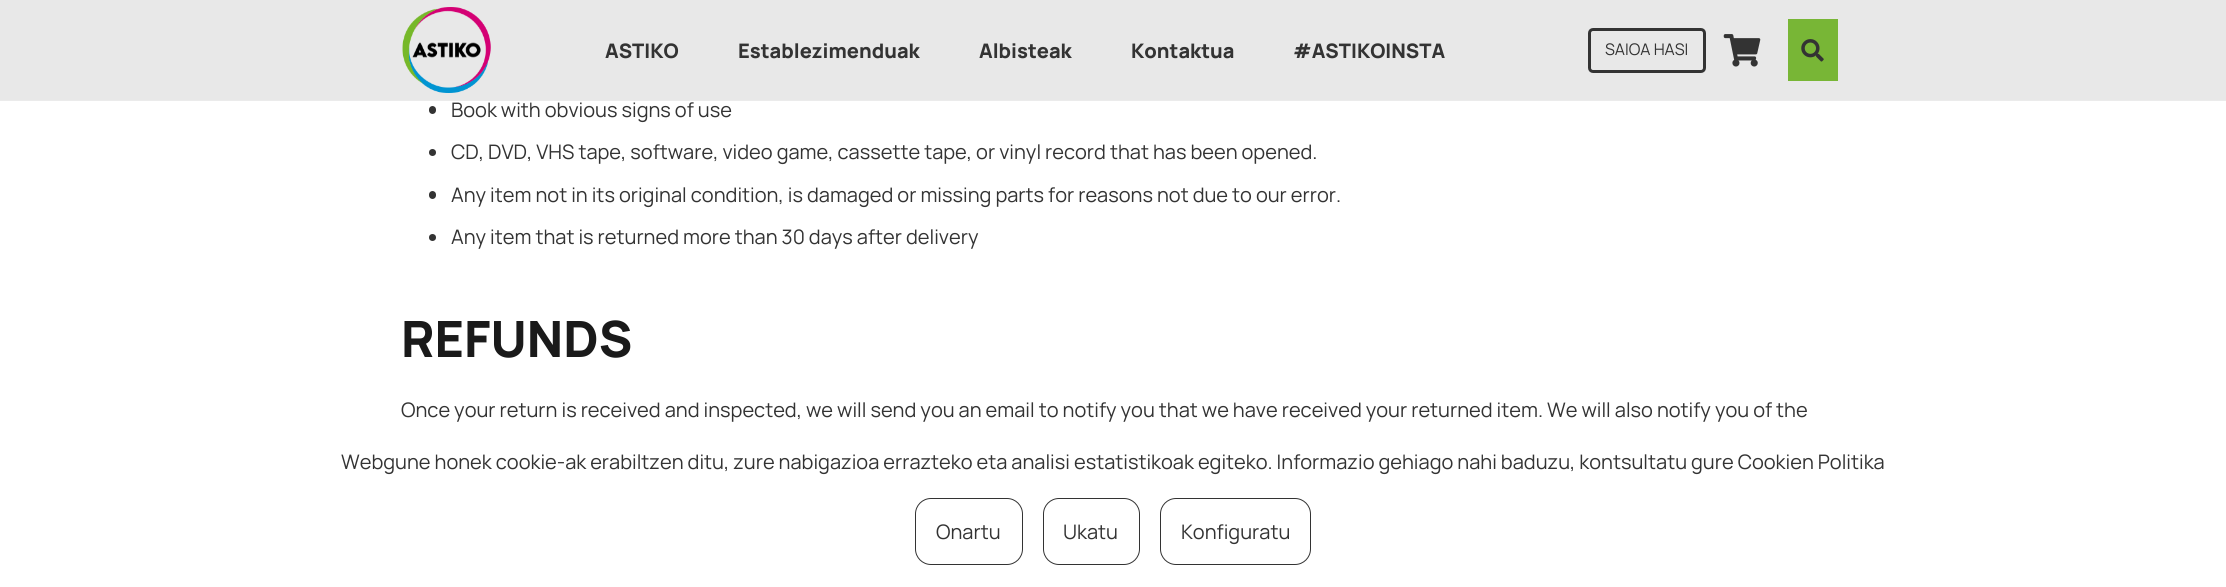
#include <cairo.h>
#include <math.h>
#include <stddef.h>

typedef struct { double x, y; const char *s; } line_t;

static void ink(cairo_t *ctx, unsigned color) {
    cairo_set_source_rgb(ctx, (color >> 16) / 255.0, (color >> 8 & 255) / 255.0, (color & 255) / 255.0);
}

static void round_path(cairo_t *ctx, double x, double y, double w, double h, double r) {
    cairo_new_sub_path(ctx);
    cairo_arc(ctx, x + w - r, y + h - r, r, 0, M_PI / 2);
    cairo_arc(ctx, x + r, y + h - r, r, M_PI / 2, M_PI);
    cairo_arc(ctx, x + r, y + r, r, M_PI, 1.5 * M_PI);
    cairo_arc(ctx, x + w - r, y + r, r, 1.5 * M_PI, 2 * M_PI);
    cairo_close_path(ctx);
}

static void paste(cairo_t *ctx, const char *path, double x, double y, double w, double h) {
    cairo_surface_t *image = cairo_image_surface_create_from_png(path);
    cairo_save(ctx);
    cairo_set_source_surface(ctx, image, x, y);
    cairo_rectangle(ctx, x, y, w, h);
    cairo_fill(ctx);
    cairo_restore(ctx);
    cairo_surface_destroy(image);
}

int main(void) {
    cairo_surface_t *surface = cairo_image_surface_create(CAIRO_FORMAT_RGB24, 2226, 587);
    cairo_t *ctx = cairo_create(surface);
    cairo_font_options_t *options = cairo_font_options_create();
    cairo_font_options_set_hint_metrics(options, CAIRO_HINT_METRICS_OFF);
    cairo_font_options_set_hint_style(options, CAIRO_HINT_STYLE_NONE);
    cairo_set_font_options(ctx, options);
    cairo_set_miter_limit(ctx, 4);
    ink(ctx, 0xFFFFFF);
    cairo_paint(ctx);
    ink(ctx, 0xEBEBEB);
    cairo_rectangle(ctx, 0, 100, 2226, 1);
    cairo_fill(ctx);
    ink(ctx, 0xE8E8E8);
    cairo_rectangle(ctx, 0, 0, 2226, 100);
    cairo_fill(ctx);
    paste(ctx, "media/1.png", 402, 7, 89, 86);
    cairo_select_font_face(ctx, "Manrope ExtraBold", CAIRO_FONT_SLANT_NORMAL, CAIRO_FONT_WEIGHT_NORMAL);
    cairo_set_font_size(ctx, 20);
    ink(ctx, 0x333333);
    {
        static const line_t items[] = {
            {605, 58, "ASTIKO"},
            {738, 58, "Establezimenduak"},
            {979, 58, "Albisteak"},
            {1131, 58, "Kontaktua"},
            {1293, 58, "#ASTIKOINSTA"},
        };
        for (size_t i = 0; i < sizeof items / sizeof *items; i++) {
            cairo_move_to(ctx, items[i].x, items[i].y);
            cairo_show_text(ctx, items[i].s);
        }
    }
    round_path(ctx, 1589.5, 29.5, 115, 42, 3.5);
    cairo_set_line_width(ctx, 3);
    cairo_stroke(ctx);
    cairo_select_font_face(ctx, "Manrope", CAIRO_FONT_SLANT_NORMAL, CAIRO_FONT_WEIGHT_NORMAL);
    cairo_set_font_size(ctx, 16);
    cairo_move_to(ctx, 1605, 55);
    cairo_show_text(ctx, "SAIOA HASI");
    paste(ctx, "media/2.png", 1723, 34, 38, 33);
    ink(ctx, 0x78B636);
    cairo_rectangle(ctx, 1788, 19, 50, 62);
    cairo_fill(ctx);
    paste(ctx, "media/3.png", 1801, 39, 23, 23);
    ink(ctx, 0x333333);
    round_path(ctx, 429, 106, 7, 8, 3.5);
    cairo_fill(ctx);
    cairo_set_font_size(ctx, 20);
    cairo_move_to(ctx, 451, 117);
    cairo_show_text(ctx, "Book with obvious signs of use");
    cairo_new_path(ctx);
    cairo_arc(ctx, 432.5, 152.5, 3.5, 0, 2 * M_PI);
    cairo_fill(ctx);
    cairo_move_to(ctx, 451, 159);
    cairo_show_text(ctx, "CD, DVD, VHS tape, software, video game, cassette tape, or vinyl record that has been opened.");
    round_path(ctx, 429, 191, 7, 8, 3.5);
    cairo_fill(ctx);
    cairo_move_to(ctx, 451, 202);
    cairo_show_text(ctx, "Any item not in its original condition, is damaged or missing parts for reasons not due to our error.");
    cairo_new_path(ctx);
    cairo_arc(ctx, 432.5, 237.5, 3.5, 0, 2 * M_PI);
    cairo_fill(ctx);
    cairo_move_to(ctx, 451, 244);
    cairo_show_text(ctx, "Any item that is returned more than 30 days after delivery");
    cairo_select_font_face(ctx, "Manrope ExtraBold", CAIRO_FONT_SLANT_NORMAL, CAIRO_FONT_WEIGHT_NORMAL);
    cairo_set_font_size(ctx, 50);
    ink(ctx, 0x1A1A1A);
    cairo_move_to(ctx, 401, 357);
    cairo_show_text(ctx, "REFUNDS");
    cairo_select_font_face(ctx, "Manrope", CAIRO_FONT_SLANT_NORMAL, CAIRO_FONT_WEIGHT_NORMAL);
    cairo_set_font_size(ctx, 20);
    ink(ctx, 0x333333);
    cairo_move_to(ctx, 401, 417);
    cairo_show_text(ctx, "Once your return is received and inspected, we will send you an email to notify you that we have received your returned item. We will also notify you of the");
    cairo_move_to(ctx, 341, 469);
    cairo_show_text(ctx, "Webgune honek cookie-ak erabiltzen ditu, zure nabigazioa errazteko eta analisi estatistikoak egiteko. Informazio gehiago nahi baduzu, kontsultatu gure Cookien Politika");
    round_path(ctx, 915.5, 498.5, 107, 66, 15.5);
    cairo_set_line_width(ctx, 1);
    cairo_stroke(ctx);
    cairo_move_to(ctx, 936, 539);
    cairo_show_text(ctx, "Onartu");
    round_path(ctx, 1043.5, 498.5, 96, 66, 15.5);
    cairo_stroke(ctx);
    cairo_move_to(ctx, 1063, 539);
    cairo_show_text(ctx, "Ukatu");
    round_path(ctx, 1160.5, 498.5, 150, 66, 15.5);
    cairo_stroke(ctx);
    cairo_move_to(ctx, 1181, 539);
    cairo_show_text(ctx, "Konfiguratu");
    cairo_surface_write_to_png(surface, "image.png");
    cairo_font_options_destroy(options);
    cairo_destroy(ctx);
    cairo_surface_destroy(surface);
    return 0;
}
